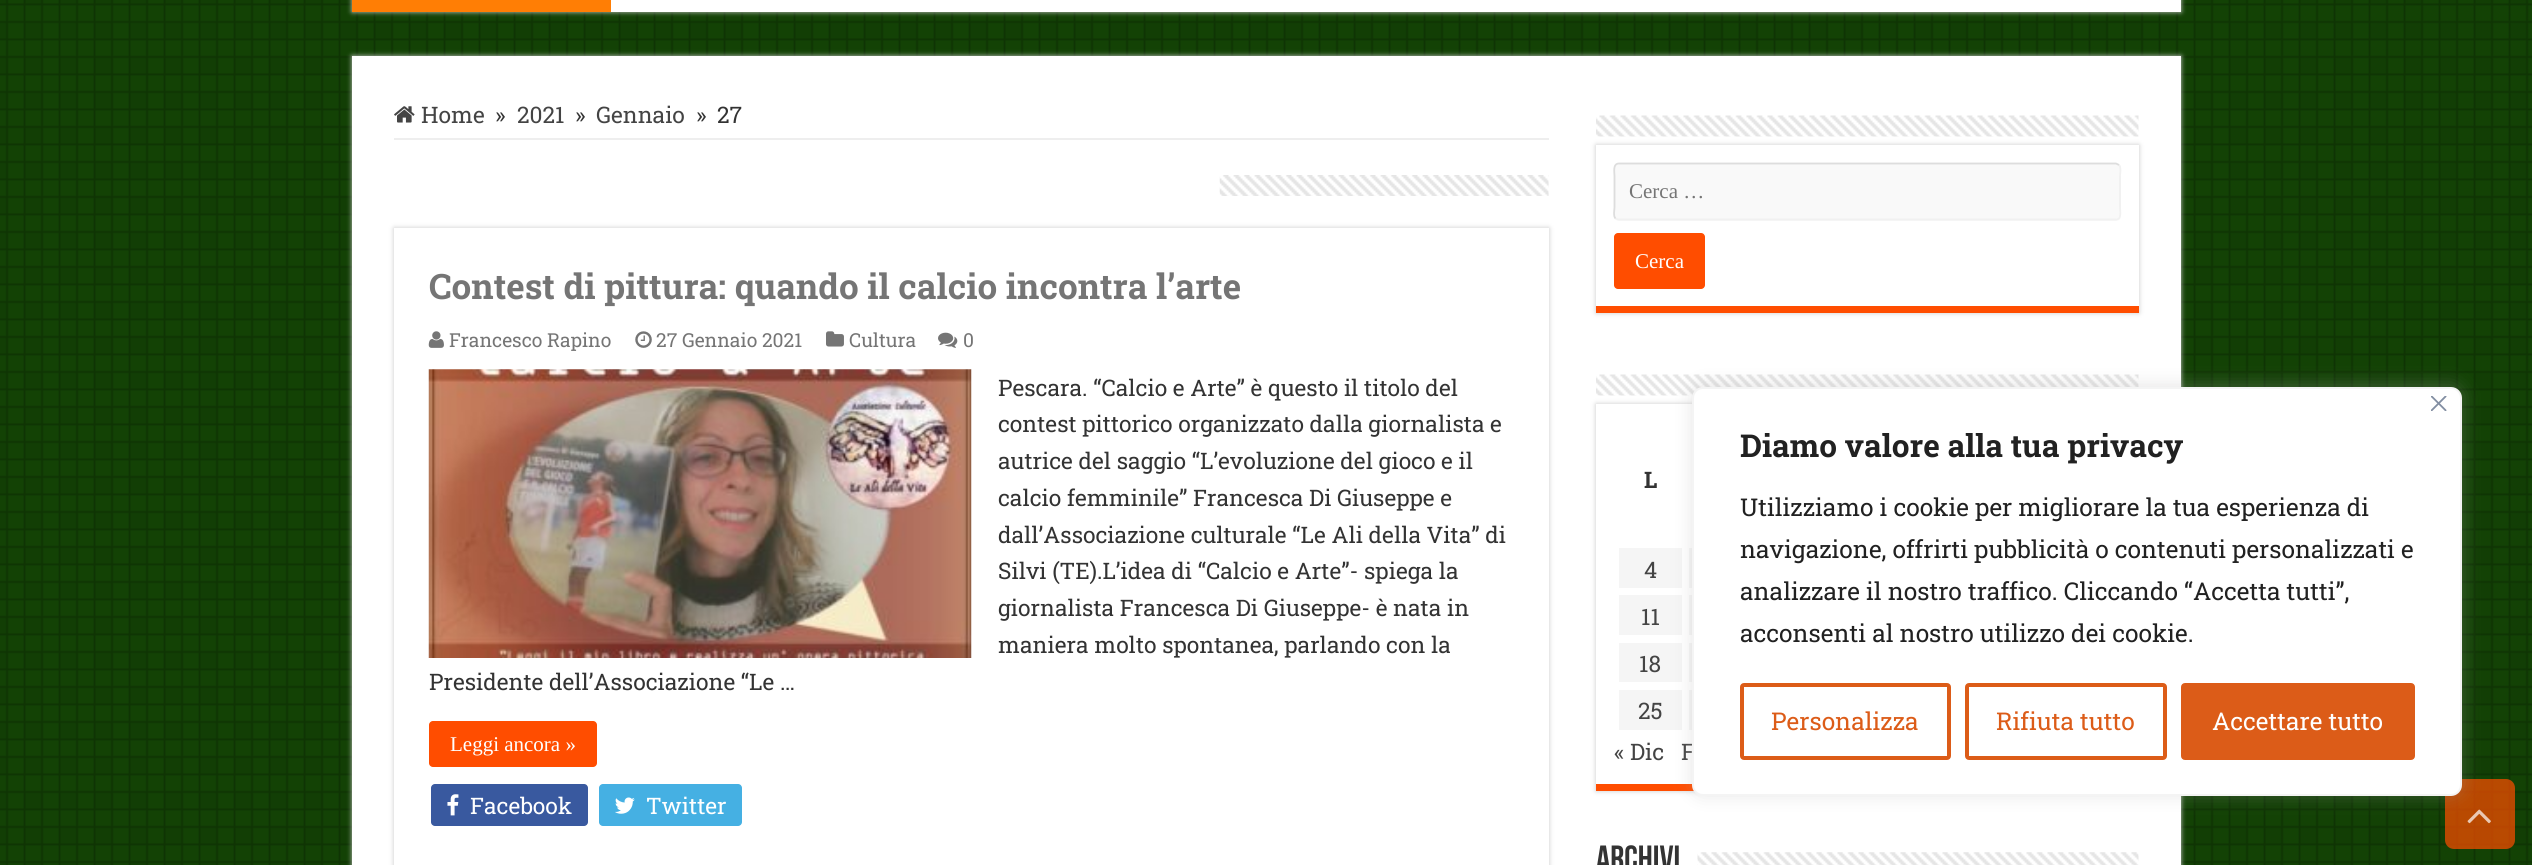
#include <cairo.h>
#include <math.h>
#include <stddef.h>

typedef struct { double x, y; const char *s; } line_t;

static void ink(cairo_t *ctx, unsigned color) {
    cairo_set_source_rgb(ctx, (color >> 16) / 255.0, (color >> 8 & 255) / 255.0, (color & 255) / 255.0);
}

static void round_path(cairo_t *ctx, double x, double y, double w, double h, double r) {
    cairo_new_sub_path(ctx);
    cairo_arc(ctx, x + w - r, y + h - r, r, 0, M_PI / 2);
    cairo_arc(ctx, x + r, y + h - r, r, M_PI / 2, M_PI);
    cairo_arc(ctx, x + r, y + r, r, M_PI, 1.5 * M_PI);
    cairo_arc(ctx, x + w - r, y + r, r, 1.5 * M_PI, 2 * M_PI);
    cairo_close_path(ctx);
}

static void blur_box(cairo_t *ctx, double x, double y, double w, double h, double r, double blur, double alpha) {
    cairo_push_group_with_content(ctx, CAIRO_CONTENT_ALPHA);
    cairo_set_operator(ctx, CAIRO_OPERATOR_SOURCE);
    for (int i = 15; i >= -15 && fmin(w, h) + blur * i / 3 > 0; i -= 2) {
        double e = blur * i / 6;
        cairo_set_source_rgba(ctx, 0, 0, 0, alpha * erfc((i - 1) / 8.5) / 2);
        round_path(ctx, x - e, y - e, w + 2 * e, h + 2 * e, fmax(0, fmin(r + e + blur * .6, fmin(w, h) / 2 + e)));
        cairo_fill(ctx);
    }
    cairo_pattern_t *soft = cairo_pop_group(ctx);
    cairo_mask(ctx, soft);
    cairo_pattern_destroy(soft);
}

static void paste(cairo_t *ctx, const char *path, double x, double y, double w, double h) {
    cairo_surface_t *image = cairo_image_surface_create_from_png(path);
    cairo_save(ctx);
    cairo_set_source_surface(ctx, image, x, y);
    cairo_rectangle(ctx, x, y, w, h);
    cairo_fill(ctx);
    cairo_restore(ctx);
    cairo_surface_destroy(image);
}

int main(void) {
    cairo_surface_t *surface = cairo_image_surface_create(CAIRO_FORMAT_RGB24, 2532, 865);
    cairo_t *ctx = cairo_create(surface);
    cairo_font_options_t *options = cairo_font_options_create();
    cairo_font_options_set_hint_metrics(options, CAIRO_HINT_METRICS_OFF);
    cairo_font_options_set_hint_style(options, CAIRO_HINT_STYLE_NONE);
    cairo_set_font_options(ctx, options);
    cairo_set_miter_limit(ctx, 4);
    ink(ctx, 0x134205);
    cairo_paint(ctx);
    paste(ctx, "media/1.png", 0, 0, 2532, 865);
    ink(ctx, 0xCACACA);
    blur_box(ctx, 352, -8, 1829, 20, 0, 2.5, 1);
    ink(ctx, 0xFFFFFF);
    cairo_rectangle(ctx, 611, 0, 1570, 12);
    cairo_fill(ctx);
    ink(ctx, 0xFF7E05);
    cairo_rectangle(ctx, 352, 0, 259, 12);
    cairo_fill(ctx);
    ink(ctx, 0xCACACA);
    blur_box(ctx, 352, 56, 1829, 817, 0, 2.5, 1);
    ink(ctx, 0xFFFFFF);
    cairo_rectangle(ctx, 352, 56, 1829, 809);
    cairo_fill(ctx);
    ink(ctx, 0xEEEEEE);
    cairo_rectangle(ctx, 394, 138, 1155, 2);
    cairo_fill(ctx);
    paste(ctx, "media/2.png", 394, 106, 21, 17);
    cairo_select_font_face(ctx, "Roboto Slab", CAIRO_FONT_SLANT_NORMAL, CAIRO_FONT_WEIGHT_NORMAL);
    cairo_set_font_size(ctx, 22.75);
    ink(ctx, 0x444444);
    cairo_move_to(ctx, 421, 123);
    cairo_show_text(ctx, "Home");
    ink(ctx, 0x333333);
    cairo_move_to(ctx, 495, 123);
    cairo_show_text(ctx, "»");
    ink(ctx, 0x444444);
    cairo_move_to(ctx, 517, 123);
    cairo_show_text(ctx, "2021");
    ink(ctx, 0x333333);
    cairo_move_to(ctx, 575, 123);
    cairo_show_text(ctx, "»");
    ink(ctx, 0x444444);
    cairo_move_to(ctx, 596, 123);
    cairo_show_text(ctx, "Gennaio");
    ink(ctx, 0x333333);
    cairo_move_to(ctx, 696, 123);
    cairo_show_text(ctx, "»");
    cairo_move_to(ctx, 717, 123);
    cairo_show_text(ctx, "27");
    paste(ctx, "media/3.png", 1219, 175, 330, 21);
    ink(ctx, 0xCACACA);
    blur_box(ctx, 394, 228, 1155, 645, 0, 2.5, 1);
    ink(ctx, 0xFFFFFF);
    cairo_rectangle(ctx, 394, 228, 1155, 637);
    cairo_fill(ctx);
    cairo_select_font_face(ctx, "Roboto Slab", CAIRO_FONT_SLANT_NORMAL, CAIRO_FONT_WEIGHT_BOLD);
    cairo_set_font_size(ctx, 35);
    ink(ctx, 0x757575);
    cairo_move_to(ctx, 429, 299);
    cairo_show_text(ctx, "Contest di pittura: quando il calcio incontra l’arte");
    paste(ctx, "media/4.png", 428, 331, 16, 17);
    cairo_select_font_face(ctx, "Roboto Slab", CAIRO_FONT_SLANT_NORMAL, CAIRO_FONT_WEIGHT_NORMAL);
    cairo_set_font_size(ctx, 19.25);
    cairo_move_to(ctx, 449, 347);
    cairo_show_text(ctx, "Francesco Rapino");
    paste(ctx, "media/5.png", 635, 331, 17, 17);
    cairo_move_to(ctx, 656, 347);
    cairo_show_text(ctx, "27 Gennaio 2021");
    paste(ctx, "media/6.png", 826, 331, 18, 16);
    cairo_move_to(ctx, 849, 347);
    cairo_show_text(ctx, "Cultura");
    paste(ctx, "media/7.png", 938, 332, 20, 16);
    cairo_move_to(ctx, 963, 347);
    cairo_show_text(ctx, "0");
    paste(ctx, "media/8.png", 428, 369, 544, 289);
    cairo_set_font_size(ctx, 22.75);
    ink(ctx, 0x333333);
    {
        static const line_t items[] = {
            {998, 396, "Pescara. “Calcio e Arte” è questo il titolo del"},
            {998, 432, "contest pittorico organizzato dalla giornalista e"},
            {998, 469, "autrice del saggio “L’evoluzione del gioco e il"},
            {998, 506, "calcio femminile” Francesca Di Giuseppe e"},
            {998, 543, "dall’Associazione culturale “Le Ali della Vita” di"},
            {998, 579, "Silvi (TE).L’idea di “Calcio e Arte”- spiega la"},
            {998, 616, "giornalista Francesca Di Giuseppe- è nata in"},
            {998, 653, "maniera molto spontanea, parlando con la"},
            {429, 690, "Presidente dell’Associazione “Le …"},
        };
        for (size_t i = 0; i < sizeof items / sizeof *items; i++) {
            cairo_move_to(ctx, items[i].x, items[i].y);
            cairo_show_text(ctx, items[i].s);
        }
    }
    ink(ctx, 0xFF4D00);
    round_path(ctx, 429, 721, 168, 46, 4);
    cairo_fill(ctx);
    cairo_select_font_face(ctx, "Liberation Serif", CAIRO_FONT_SLANT_NORMAL, CAIRO_FONT_WEIGHT_NORMAL);
    cairo_set_font_size(ctx, 21);
    ink(ctx, 0xFFFFFF);
    cairo_move_to(ctx, 450, 751);
    cairo_show_text(ctx, "Leggi ancora »");
    ink(ctx, 0x39599F);
    round_path(ctx, 431, 784, 157, 42, 4);
    cairo_fill(ctx);
    paste(ctx, "media/9.png", 447, 794, 12, 22);
    cairo_select_font_face(ctx, "Roboto Slab", CAIRO_FONT_SLANT_NORMAL, CAIRO_FONT_WEIGHT_NORMAL);
    cairo_set_font_size(ctx, 22.75);
    ink(ctx, 0xFFFFFF);
    cairo_move_to(ctx, 470, 814);
    cairo_show_text(ctx, "Facebook");
    ink(ctx, 0x45B0E3);
    round_path(ctx, 599, 784, 143, 42, 4);
    cairo_fill(ctx);
    paste(ctx, "media/10.png", 615, 797, 20, 17);
    ink(ctx, 0xFFFFFF);
    cairo_move_to(ctx, 646, 814);
    cairo_show_text(ctx, "Twitter");
    ink(ctx, 0xCACACA);
    blur_box(ctx, 1596, 145, 543, 168, 0, 2.5, 1);
    paste(ctx, "media/11.png", 1596, 115, 543, 22);
    ink(ctx, 0xFFFFFF);
    cairo_rectangle(ctx, 1596, 145, 543, 161);
    cairo_fill(ctx);
    ink(ctx, 0xFF4D00);
    cairo_rectangle(ctx, 1596, 306, 543, 7);
    cairo_fill(ctx);
    ink(ctx, 0xF9F9F9);
    round_path(ctx, 1614, 163, 507, 58, 5);
    cairo_fill(ctx);
    cairo_new_path(ctx);
    cairo_move_to(ctx, 2119, 165);
    cairo_curve_to(ctx, 2121.5, 167.5, 2120, 174, 2120, 176);
    cairo_line_to(ctx, 2120, 207.5);
    cairo_curve_to(ctx, 2120, 210.5, 2122, 219.5, 2116, 219.5);
    cairo_line_to(ctx, 1618.5, 219.5);
    cairo_line_to(ctx, 1615.5, 218.5);
    ink(ctx, 0xF1F1F1);
    cairo_set_line_width(ctx, 1.8);
    cairo_stroke(ctx);
    cairo_new_path(ctx);
    cairo_move_to(ctx, 1615.5, 218.5);
    cairo_curve_to(ctx, 1613, 216, 1614.5, 209.5, 1614.5, 207.5);
    cairo_line_to(ctx, 1614.5, 176);
    cairo_curve_to(ctx, 1614.5, 172.5, 1612.5, 163.5, 1619, 163.5);
    cairo_line_to(ctx, 2116, 163.5);
    cairo_line_to(ctx, 2119, 165);
    ink(ctx, 0xDDDDDD);
    cairo_stroke(ctx);
    cairo_select_font_face(ctx, "Liberation Serif", CAIRO_FONT_SLANT_NORMAL, CAIRO_FONT_WEIGHT_NORMAL);
    cairo_set_font_size(ctx, 21);
    ink(ctx, 0x757575);
    cairo_move_to(ctx, 1629, 198);
    cairo_show_text(ctx, "Cerca …");
    ink(ctx, 0xFF4D00);
    round_path(ctx, 1614, 233, 91, 56, 4);
    cairo_fill(ctx);
    ink(ctx, 0xFFFFFF);
    cairo_move_to(ctx, 1635, 268);
    cairo_show_text(ctx, "Cerca");
    ink(ctx, 0xCACACA);
    blur_box(ctx, 1596, 404, 543, 387, 0, 2.5, 1);
    paste(ctx, "media/11.png", 1596, 374, 543, 22);
    ink(ctx, 0xFFFFFF);
    cairo_rectangle(ctx, 1596, 404, 96, 380);
    cairo_fill(ctx);
    ink(ctx, 0xFF4D00);
    cairo_rectangle(ctx, 1596, 784, 98, 7);
    cairo_fill(ctx);
    cairo_select_font_face(ctx, "Roboto Slab", CAIRO_FONT_SLANT_NORMAL, CAIRO_FONT_WEIGHT_BOLD);
    cairo_set_font_size(ctx, 22.75);
    ink(ctx, 0x333333);
    cairo_move_to(ctx, 1644, 488);
    cairo_show_text(ctx, "L");
    ink(ctx, 0xF5F5F5);
    cairo_rectangle(ctx, 1619, 548, 63, 40);
    cairo_fill(ctx);
    cairo_select_font_face(ctx, "Roboto Slab", CAIRO_FONT_SLANT_NORMAL, CAIRO_FONT_WEIGHT_NORMAL);
    ink(ctx, 0x444444);
    cairo_move_to(ctx, 1644, 578);
    cairo_show_text(ctx, "4");
    ink(ctx, 0xF5F5F5);
    cairo_rectangle(ctx, 1689, 548, 3, 40);
    cairo_fill(ctx);
    cairo_rectangle(ctx, 1688, 547, 66, 42);
    ink(ctx, 0xFFFFFF);
    cairo_set_line_width(ctx, 2);
    cairo_stroke(ctx);
    ink(ctx, 0xF5F5F5);
    cairo_rectangle(ctx, 1619, 595, 63, 40);
    cairo_fill(ctx);
    ink(ctx, 0x444444);
    cairo_move_to(ctx, 1641, 625);
    cairo_show_text(ctx, "11");
    ink(ctx, 0xF5F5F5);
    cairo_rectangle(ctx, 1689, 595, 3, 40);
    cairo_fill(ctx);
    cairo_rectangle(ctx, 1688, 594, 66, 42);
    ink(ctx, 0xFFFFFF);
    cairo_stroke(ctx);
    ink(ctx, 0xF5F5F5);
    cairo_rectangle(ctx, 1619, 643, 63, 39);
    cairo_fill(ctx);
    ink(ctx, 0x444444);
    cairo_move_to(ctx, 1639, 672);
    cairo_show_text(ctx, "18");
    ink(ctx, 0xF5F5F5);
    cairo_rectangle(ctx, 1689, 643, 3, 39);
    cairo_fill(ctx);
    cairo_rectangle(ctx, 1688, 642, 66, 41);
    ink(ctx, 0xFFFFFF);
    cairo_stroke(ctx);
    ink(ctx, 0xF5F5F5);
    cairo_rectangle(ctx, 1619, 690, 63, 40);
    cairo_fill(ctx);
    ink(ctx, 0x444444);
    cairo_move_to(ctx, 1638, 719);
    cairo_show_text(ctx, "25");
    ink(ctx, 0xF5F5F5);
    cairo_rectangle(ctx, 1689, 690, 3, 40);
    cairo_fill(ctx);
    cairo_rectangle(ctx, 1688, 689, 66, 42);
    ink(ctx, 0xFFFFFF);
    cairo_stroke(ctx);
    ink(ctx, 0x444444);
    cairo_move_to(ctx, 1614, 760);
    cairo_show_text(ctx, "« Dic");
    cairo_move_to(ctx, 1681, 760);
    cairo_show_text(ctx, "F");
    cairo_select_font_face(ctx, "Bebas Neue", CAIRO_FONT_SLANT_NORMAL, CAIRO_FONT_WEIGHT_BOLD);
    cairo_set_font_size(ctx, 35);
    ink(ctx, 0x333333);
    cairo_move_to(ctx, 1596, 870);
    cairo_show_text(ctx, "Archivi");
    paste(ctx, "media/12.png", 1697, 852, 442, 13);
    cairo_set_source_rgba(ctx, 1, 0.302, 0, 0.7);
    round_path(ctx, 2445, 779, 70, 70, 9);
    cairo_fill(ctx);
    paste(ctx, "media/14.png", 2467, 809, 24, 15);
    ink(ctx, 0xACABAB);
    blur_box(ctx, 1692, 385, 770, 410, 11, 9, 0.3);
    ink(ctx, 0xFFFFFF);
    round_path(ctx, 1693, 388, 768, 407, 10);
    cairo_fill_preserve(ctx);
    ink(ctx, 0xF4F4F4);
    cairo_stroke(ctx);
    paste(ctx, "media/13.png", 2431, 396, 16, 15);
    cairo_select_font_face(ctx, "Roboto Slab", CAIRO_FONT_SLANT_NORMAL, CAIRO_FONT_WEIGHT_BOLD);
    cairo_set_font_size(ctx, 31.5);
    ink(ctx, 0x212121);
    cairo_move_to(ctx, 1740, 457);
    cairo_show_text(ctx, "Diamo valore alla tua privacy");
    cairo_select_font_face(ctx, "Roboto Slab", CAIRO_FONT_SLANT_NORMAL, CAIRO_FONT_WEIGHT_NORMAL);
    cairo_set_font_size(ctx, 24.5);
    {
        static const line_t items[] = {
            {1740, 516, "Utilizziamo i cookie per migliorare la tua esperienza di"},
            {1740, 558, "navigazione, offrirti pubblicità o contenuti personalizzati e"},
            {1740, 600, "analizzare il nostro traffico. Cliccando “Accetta tutti”,"},
            {1740, 642, "acconsenti al nostro utilizzo dei cookie."},
        };
        for (size_t i = 0; i < sizeof items / sizeof *items; i++) {
            cairo_move_to(ctx, items[i].x, items[i].y);
            cairo_show_text(ctx, items[i].s);
        }
    }
    round_path(ctx, 1742, 685, 207, 73, 2);
    ink(ctx, 0xDC5C18);
    cairo_set_line_width(ctx, 4);
    cairo_stroke(ctx);
    cairo_move_to(ctx, 1771, 730);
    cairo_show_text(ctx, "Personalizza");
    round_path(ctx, 1967, 685, 198, 73, 2);
    cairo_stroke(ctx);
    cairo_move_to(ctx, 1996, 730);
    cairo_show_text(ctx, "Rifiuta tutto");
    round_path(ctx, 2183, 685, 230, 73, 2);
    cairo_fill_preserve(ctx);
    cairo_stroke(ctx);
    ink(ctx, 0xFFFFFF);
    cairo_move_to(ctx, 2212, 730);
    cairo_show_text(ctx, "Accettare tutto");
    cairo_surface_write_to_png(surface, "image.png");
    cairo_font_options_destroy(options);
    cairo_destroy(ctx);
    cairo_surface_destroy(surface);
    return 0;
}
